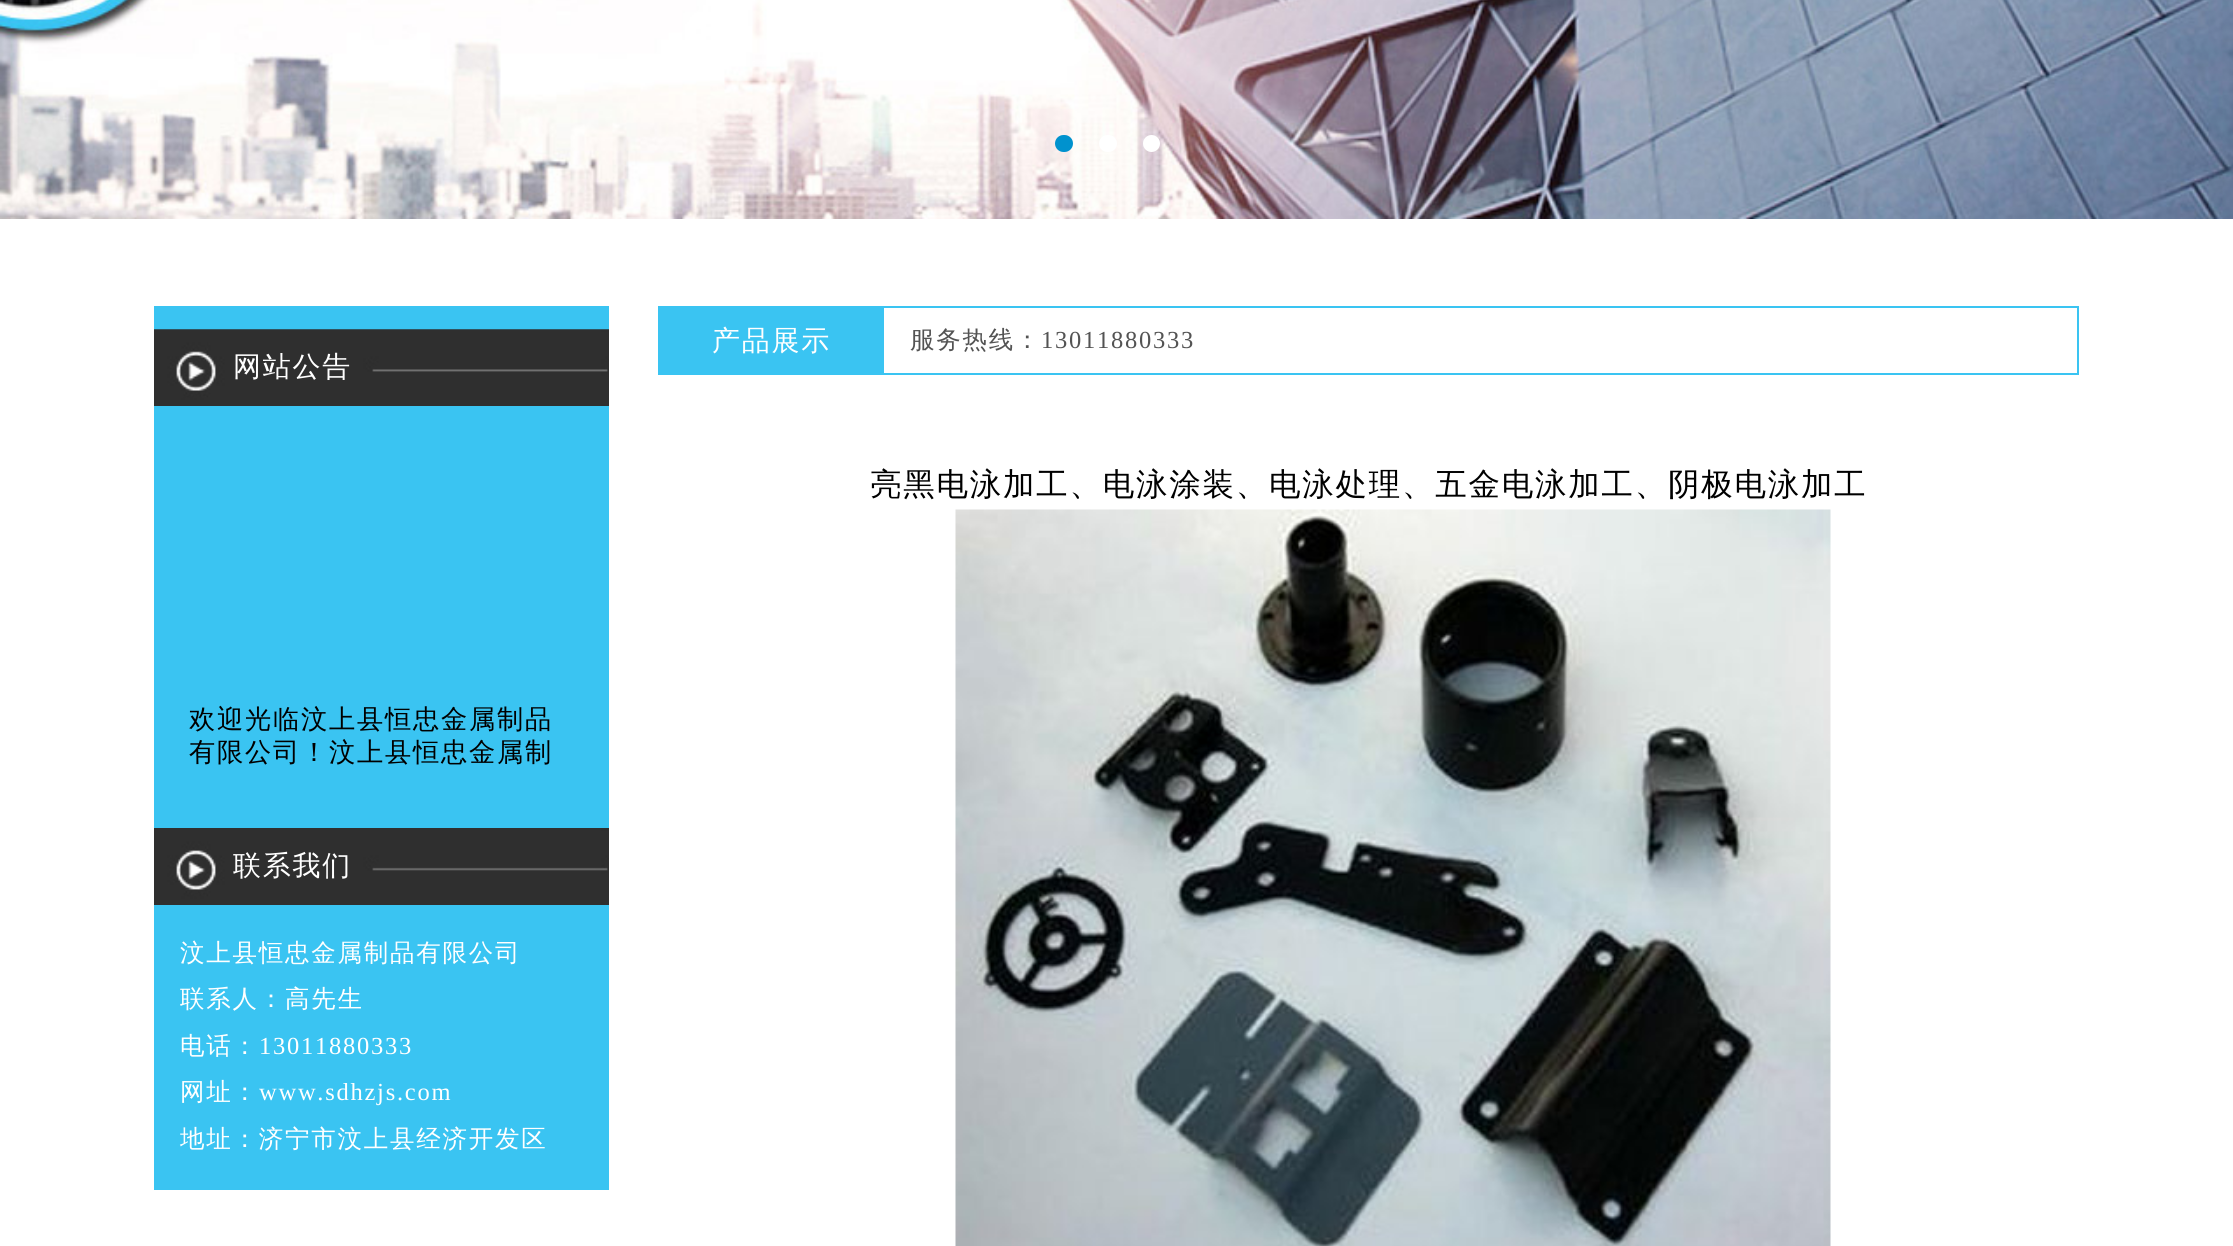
#include <cairo.h>
#include <math.h>
#include <stddef.h>

typedef struct { double x, y; const char *s; } line_t;

static void ink(cairo_t *ctx, unsigned color) {
    cairo_set_source_rgb(ctx, (color >> 16) / 255.0, (color >> 8 & 255) / 255.0, (color & 255) / 255.0);
}

static void write_spaced(cairo_t *ctx, double x, double y, const char *s, double letter, double word) {
    cairo_move_to(ctx, x, y);
    while (*s) {
        char ch[5] = {0};
        int n = 0;
        do ch[n++] = *s++; while ((*s & 0xC0) == 0x80);
        cairo_show_text(ctx, ch);
        cairo_rel_move_to(ctx, letter + word * (*ch == ' '), 0);
    }
}

static void round_path(cairo_t *ctx, double x, double y, double w, double h, double r) {
    cairo_new_sub_path(ctx);
    cairo_arc(ctx, x + w - r, y + h - r, r, 0, M_PI / 2);
    cairo_arc(ctx, x + r, y + h - r, r, M_PI / 2, M_PI);
    cairo_arc(ctx, x + r, y + r, r, M_PI, 1.5 * M_PI);
    cairo_arc(ctx, x + w - r, y + r, r, 1.5 * M_PI, 2 * M_PI);
    cairo_close_path(ctx);
}

static void paste(cairo_t *ctx, const char *path, double x, double y, double w, double h) {
    cairo_surface_t *image = cairo_image_surface_create_from_png(path);
    cairo_save(ctx);
    cairo_set_source_surface(ctx, image, x, y);
    cairo_rectangle(ctx, x, y, w, h);
    cairo_fill(ctx);
    cairo_restore(ctx);
    cairo_surface_destroy(image);
}

int main(void) {
    cairo_surface_t *surface = cairo_image_surface_create(CAIRO_FORMAT_RGB24, 2233, 1246);
    cairo_t *ctx = cairo_create(surface);
    cairo_font_options_t *options = cairo_font_options_create();
    cairo_font_options_set_hint_metrics(options, CAIRO_HINT_METRICS_OFF);
    cairo_font_options_set_hint_style(options, CAIRO_HINT_STYLE_NONE);
    cairo_set_font_options(ctx, options);
    cairo_set_miter_limit(ctx, 4);
    ink(ctx, 0xFFFFFF);
    cairo_paint(ctx);
    paste(ctx, "media/1.png", 0, 0, 2233, 219);
    ink(ctx, 0x0092CE);
    round_path(ctx, 1055, 135, 18, 17, 8.5);
    cairo_fill(ctx);
    ink(ctx, 0xFFFFFF);
    round_path(ctx, 1099, 135, 18, 17, 8.5);
    cairo_fill(ctx);
    cairo_arc(ctx, 1151.5, 143.5, 8.5, 0, 2 * M_PI);
    cairo_fill(ctx);
    cairo_rectangle(ctx, 659, 307, 1419, 67);
    ink(ctx, 0x3AC4F2);
    cairo_stroke(ctx);
    cairo_rectangle(ctx, 660, 308, 224, 65);
    cairo_fill(ctx);
    cairo_select_font_face(ctx, "WenQuanYi Zen Hei Medium", CAIRO_FONT_SLANT_NORMAL, CAIRO_FONT_WEIGHT_NORMAL);
    cairo_set_font_size(ctx, 28);
    ink(ctx, 0xFFFFFF);
    write_spaced(ctx, 712, 350, "产品展示", 1.75, 0);
    cairo_set_font_size(ctx, 24.5);
    ink(ctx, 0x535353);
    write_spaced(ctx, 910, 348, "服务热线：", 1.75, 0);
    cairo_select_font_face(ctx, "Liberation Serif", CAIRO_FONT_SLANT_NORMAL, CAIRO_FONT_WEIGHT_NORMAL);
    write_spaced(ctx, 1041, 348, "13011880333", 1.75, 0);
    ink(ctx, 0x3AC4F2);
    cairo_rectangle(ctx, 154, 306, 455, 24);
    cairo_fill(ctx);
    paste(ctx, "media/2.png", 154, 329, 455, 77);
    cairo_select_font_face(ctx, "WenQuanYi Zen Hei Medium", CAIRO_FONT_SLANT_NORMAL, CAIRO_FONT_WEIGHT_NORMAL);
    cairo_set_font_size(ctx, 28);
    ink(ctx, 0xFFFFFF);
    write_spaced(ctx, 233, 376, "网站公告", 1.75, 0);
    ink(ctx, 0x3AC4F2);
    cairo_rectangle(ctx, 154, 406, 455, 422);
    cairo_fill(ctx);
    cairo_set_font_size(ctx, 26.25);
    ink(ctx, 0x000000);
    write_spaced(ctx, 189, 728, "欢迎光临汶上县恒忠金属制品", 1.75, 0);
    write_spaced(ctx, 189, 761, "有限公司！汶上县恒忠金属制", 1.75, 0);
    paste(ctx, "media/3.png", 154, 828, 455, 77);
    cairo_set_font_size(ctx, 28);
    ink(ctx, 0xFFFFFF);
    write_spaced(ctx, 233, 875, "联系我们", 1.75, 0);
    ink(ctx, 0x3AC4F2);
    cairo_rectangle(ctx, 154, 905, 455, 285);
    cairo_fill(ctx);
    cairo_set_font_size(ctx, 24.5);
    ink(ctx, 0xFFFFFF);
    {
        static const line_t items[] = {
            {180, 961, "汶上县恒忠金属制品有限公司"},
            {180, 1007, "联系人：高先生"},
            {180, 1054, "电话："},
        };
        for (size_t i = 0; i < sizeof items / sizeof *items; i++) {
            write_spaced(ctx, items[i].x, items[i].y, items[i].s, 1.75, 0);
        }
    }
    cairo_select_font_face(ctx, "Liberation Serif", CAIRO_FONT_SLANT_NORMAL, CAIRO_FONT_WEIGHT_NORMAL);
    write_spaced(ctx, 259, 1054, "13011880333", 1.75, 0);
    cairo_select_font_face(ctx, "WenQuanYi Zen Hei Medium", CAIRO_FONT_SLANT_NORMAL, CAIRO_FONT_WEIGHT_NORMAL);
    write_spaced(ctx, 180, 1100, "网址：", 1.75, 0);
    cairo_select_font_face(ctx, "Liberation Serif", CAIRO_FONT_SLANT_NORMAL, CAIRO_FONT_WEIGHT_NORMAL);
    write_spaced(ctx, 259, 1100, "www.sdhzjs.com", 1.75, 0);
    cairo_select_font_face(ctx, "WenQuanYi Zen Hei Medium", CAIRO_FONT_SLANT_NORMAL, CAIRO_FONT_WEIGHT_NORMAL);
    write_spaced(ctx, 180, 1147, "地址：济宁市汶上县经济开发区", 1.75, 0);
    cairo_set_font_size(ctx, 31.5);
    ink(ctx, 0x000000);
    write_spaced(ctx, 870, 495, "亮黑电泳加工、电泳涂装、电泳处理、五金电泳加工、阴极电泳加工", 1.75, 0);
    paste(ctx, "media/4.png", 955, 509, 876, 737);
    cairo_surface_write_to_png(surface, "image.png");
    cairo_font_options_destroy(options);
    cairo_destroy(ctx);
    cairo_surface_destroy(surface);
    return 0;
}
